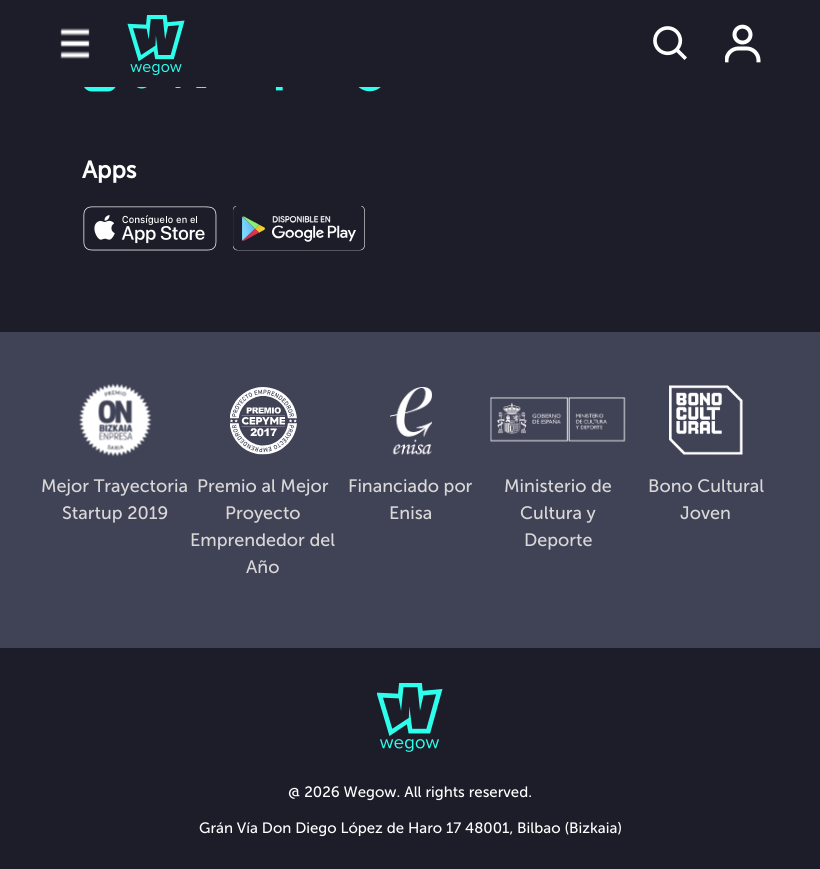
#include <cairo.h>
#include <math.h>
#include <stddef.h>

typedef struct { double x, y; const char *s; } line_t;

static void ink(cairo_t *ctx, unsigned color) {
    cairo_set_source_rgb(ctx, (color >> 16) / 255.0, (color >> 8 & 255) / 255.0, (color & 255) / 255.0);
}

static void paste(cairo_t *ctx, const char *path, double x, double y, double w, double h) {
    cairo_surface_t *image = cairo_image_surface_create_from_png(path);
    cairo_save(ctx);
    cairo_set_source_surface(ctx, image, x, y);
    cairo_rectangle(ctx, x, y, w, h);
    cairo_fill(ctx);
    cairo_restore(ctx);
    cairo_surface_destroy(image);
}

int main(void) {
    cairo_surface_t *surface = cairo_image_surface_create(CAIRO_FORMAT_RGB24, 820, 869);
    cairo_t *ctx = cairo_create(surface);
    cairo_font_options_t *options = cairo_font_options_create();
    cairo_font_options_set_hint_metrics(options, CAIRO_HINT_METRICS_OFF);
    cairo_font_options_set_hint_style(options, CAIRO_HINT_STYLE_NONE);
    cairo_set_font_options(ctx, options);
    cairo_set_miter_limit(ctx, 4);
    ink(ctx, 0x1C1D29);
    cairo_paint(ctx);
    paste(ctx, "media/1.png", 60, 28, 30, 31);
    paste(ctx, "media/2.png", 127, 15, 58, 60);
    paste(ctx, "media/3.png", 653, 26, 34, 34);
    paste(ctx, "media/4.png", 725, 24, 36, 39);
    paste(ctx, "media/5.png", 84, 87, 32, 5);
    paste(ctx, "media/6.png", 136, 87, 11, 2);
    paste(ctx, "media/7.png", 175, 87, 32, 1);
    paste(ctx, "media/8.png", 275, 87, 8, 4);
    paste(ctx, "media/9.png", 358, 87, 23, 5);
    cairo_select_font_face(ctx, "Museo Sans", CAIRO_FONT_SLANT_NORMAL, CAIRO_FONT_WEIGHT_BOLD);
    cairo_set_font_size(ctx, 24);
    ink(ctx, 0xFFFFFF);
    cairo_move_to(ctx, 82, 178);
    cairo_show_text(ctx, "Apps");
    paste(ctx, "media/10.png", 83, 206, 134, 45);
    paste(ctx, "media/11.png", 233, 206, 132, 45);
    ink(ctx, 0x404256);
    cairo_rectangle(ctx, 0, 332, 820, 316);
    cairo_fill(ctx);
    paste(ctx, "media/12.png", 79, 383, 73, 74);
    cairo_select_font_face(ctx, "Museo Sans", CAIRO_FONT_SLANT_NORMAL, CAIRO_FONT_WEIGHT_NORMAL);
    cairo_set_font_size(ctx, 18);
    ink(ctx, 0xD8D8D8);
    cairo_move_to(ctx, 41, 492);
    cairo_show_text(ctx, "Mejor Trayectoria");
    cairo_move_to(ctx, 62, 519);
    cairo_show_text(ctx, "Startup 2019");
    paste(ctx, "media/13.png", 230, 387, 67, 68);
    {
        static const line_t items[] = {
            {197, 492, "Premio al Mejor"},
            {225, 519, "Proyecto"},
            {190, 546, "Emprendedor del"},
            {246, 573, "Año"},
        };
        for (size_t i = 0; i < sizeof items / sizeof *items; i++) {
            cairo_move_to(ctx, items[i].x, items[i].y);
            cairo_show_text(ctx, items[i].s);
        }
    }
    paste(ctx, "media/14.png", 390, 387, 42, 68);
    cairo_move_to(ctx, 348, 492);
    cairo_show_text(ctx, "Financiado por");
    cairo_move_to(ctx, 389, 519);
    cairo_show_text(ctx, "Enisa");
    paste(ctx, "media/15.png", 490, 397, 136, 45);
    {
        static const line_t items[] = {
            {504, 492, "Ministerio de"},
            {520, 519, "Cultura y"},
            {524, 546, "Deporte"},
        };
        for (size_t i = 0; i < sizeof items / sizeof *items; i++) {
            cairo_move_to(ctx, items[i].x, items[i].y);
            cairo_show_text(ctx, items[i].s);
        }
    }
    paste(ctx, "media/16.png", 669, 385, 74, 70);
    cairo_move_to(ctx, 648, 492);
    cairo_show_text(ctx, "Bono Cultural");
    cairo_move_to(ctx, 680, 519);
    cairo_show_text(ctx, "Joven");
    paste(ctx, "media/17.png", 377, 683, 66, 69);
    cairo_set_font_size(ctx, 15);
    ink(ctx, 0xFFFFFF);
    cairo_move_to(ctx, 288, 797);
    cairo_show_text(ctx, "@ 2026 Wegow. All rights reserved.");
    cairo_move_to(ctx, 199, 833);
    cairo_show_text(ctx, "Grán Vía Don Diego López de Haro 17 48001, Bilbao (Bizkaia)");
    cairo_surface_write_to_png(surface, "image.png");
    cairo_font_options_destroy(options);
    cairo_destroy(ctx);
    cairo_surface_destroy(surface);
    return 0;
}
